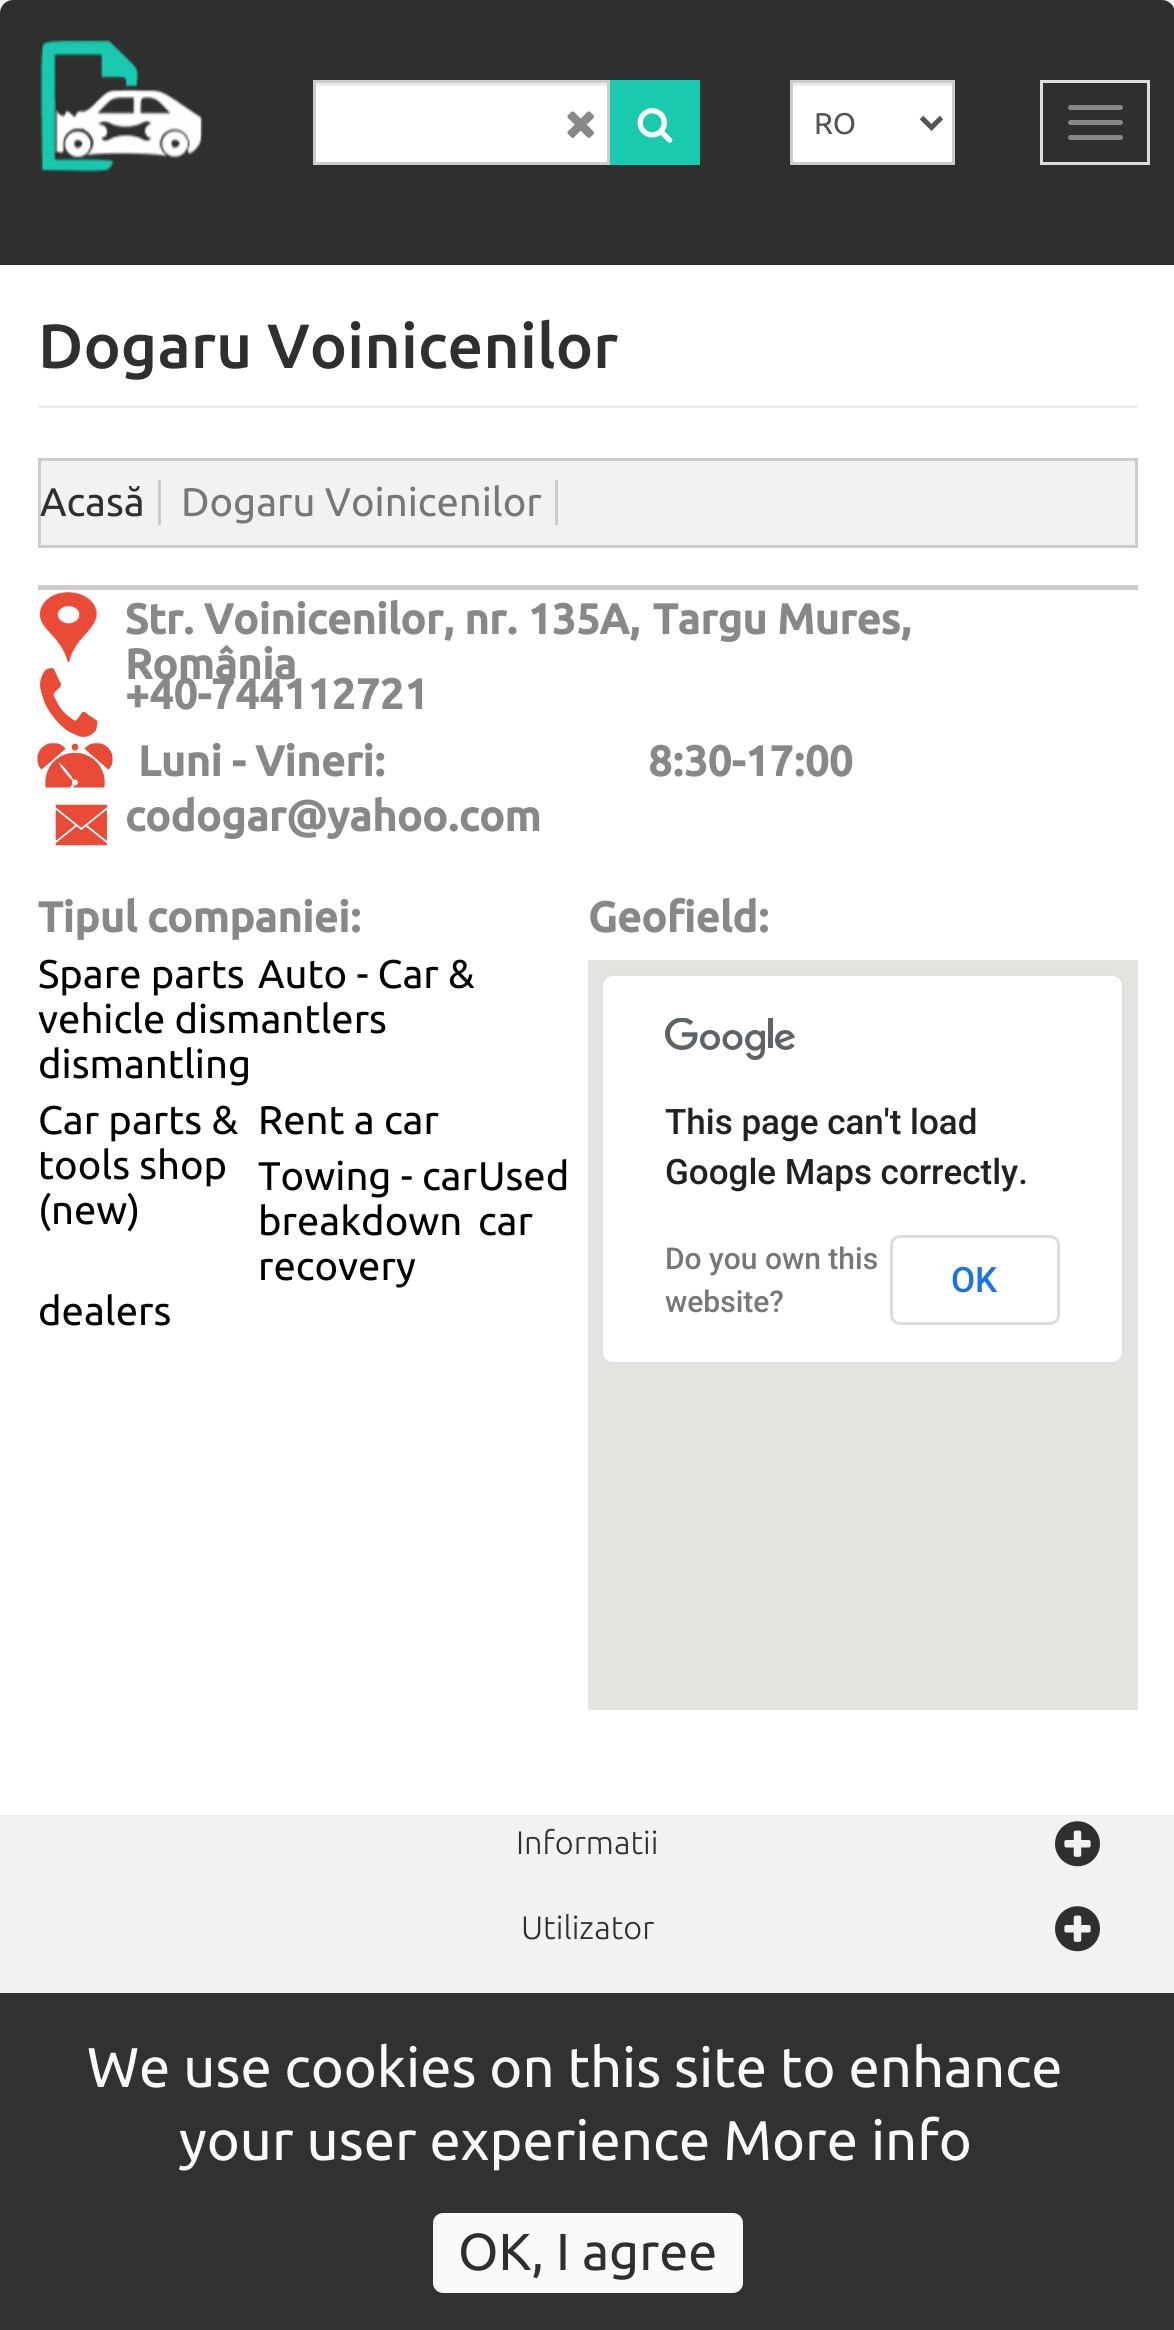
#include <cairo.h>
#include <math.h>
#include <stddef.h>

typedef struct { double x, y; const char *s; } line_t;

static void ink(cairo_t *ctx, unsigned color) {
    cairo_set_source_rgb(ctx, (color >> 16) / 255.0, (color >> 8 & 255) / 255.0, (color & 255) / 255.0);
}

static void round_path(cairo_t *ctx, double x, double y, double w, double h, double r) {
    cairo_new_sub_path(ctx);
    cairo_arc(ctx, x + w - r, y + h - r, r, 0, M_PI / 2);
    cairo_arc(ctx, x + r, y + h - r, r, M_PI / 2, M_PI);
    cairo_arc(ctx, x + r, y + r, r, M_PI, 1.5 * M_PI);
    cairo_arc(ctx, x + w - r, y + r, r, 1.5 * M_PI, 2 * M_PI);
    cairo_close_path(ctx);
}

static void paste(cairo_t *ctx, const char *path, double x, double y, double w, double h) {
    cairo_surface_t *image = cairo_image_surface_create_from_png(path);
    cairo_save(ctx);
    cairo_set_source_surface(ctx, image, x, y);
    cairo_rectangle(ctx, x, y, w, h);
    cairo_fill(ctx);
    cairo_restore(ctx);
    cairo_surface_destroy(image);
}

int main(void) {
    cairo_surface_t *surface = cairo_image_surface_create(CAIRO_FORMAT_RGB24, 1174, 2330);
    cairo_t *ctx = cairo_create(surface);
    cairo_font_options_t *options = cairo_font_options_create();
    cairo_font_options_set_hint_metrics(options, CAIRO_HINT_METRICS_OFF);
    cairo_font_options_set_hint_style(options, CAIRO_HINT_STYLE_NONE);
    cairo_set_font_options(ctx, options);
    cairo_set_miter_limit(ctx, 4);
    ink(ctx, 0xFFFFFF);
    cairo_paint(ctx);
    ink(ctx, 0xF2F2F2);
    cairo_rectangle(ctx, 0, 0, 1174, 13);
    cairo_fill(ctx);
    ink(ctx, 0x2F2F2F);
    cairo_new_path(ctx);
    cairo_move_to(ctx, 13, 0);
    cairo_line_to(ctx, 1162, 0);
    cairo_curve_to(ctx, 1169, 0, 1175, 6, 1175, 13);
    cairo_line_to(ctx, 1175, 265);
    cairo_line_to(ctx, 0, 265);
    cairo_line_to(ctx, 0, 13);
    cairo_curve_to(ctx, 0, 6, 6, 0, 13, 0);
    cairo_close_path(ctx);
    cairo_fill(ctx);
    paste(ctx, "media/1.png", 40, 40, 163, 133);
    ink(ctx, 0xFFFFFF);
    cairo_rectangle(ctx, 316, 86, 291, 76);
    cairo_fill(ctx);
    ink(ctx, 0xECECEC);
    cairo_rectangle(ctx, 315, 83, 293, 3);
    cairo_fill(ctx);
    cairo_rectangle(ctx, 314.5, 81.5, 294, 82);
    ink(ctx, 0xCCCCCC);
    cairo_set_line_width(ctx, 3);
    cairo_stroke(ctx);
    paste(ctx, "media/2.png", 567, 111, 27, 27);
    ink(ctx, 0x19CAAF);
    cairo_rectangle(ctx, 610, 80, 90, 85);
    cairo_fill(ctx);
    paste(ctx, "media/3.png", 637, 108, 36, 35);
    ink(ctx, 0xFFFFFF);
    cairo_rectangle(ctx, 793, 86, 159, 76);
    cairo_fill(ctx);
    ink(ctx, 0xECECEC);
    cairo_rectangle(ctx, 793, 83, 160, 3);
    cairo_fill(ctx);
    cairo_rectangle(ctx, 791.5, 81.5, 162, 82);
    ink(ctx, 0xCCCCCC);
    cairo_stroke(ctx);
    cairo_new_path(ctx);
    cairo_move_to(ctx, 921.5, 117.5);
    cairo_line_to(ctx, 931.5, 127.5);
    cairo_line_to(ctx, 941.5, 117.5);
    ink(ctx, 0x555555);
    cairo_set_line_width(ctx, 5);
    cairo_stroke(ctx);
    cairo_select_font_face(ctx, "Ubuntu", CAIRO_FONT_SLANT_NORMAL, CAIRO_FONT_WEIGHT_NORMAL);
    cairo_set_font_size(ctx, 30);
    cairo_move_to(ctx, 814, 134);
    cairo_show_text(ctx, "RO");
    cairo_rectangle(ctx, 1041.5, 81.5, 107, 82);
    ink(ctx, 0xDDDDDD);
    cairo_set_line_width(ctx, 3);
    cairo_stroke(ctx);
    ink(ctx, 0x888888);
    round_path(ctx, 1068, 105, 55, 5, 2.5);
    cairo_fill(ctx);
    round_path(ctx, 1068, 120, 55, 5, 2.5);
    cairo_fill(ctx);
    round_path(ctx, 1068, 135, 55, 5, 2.5);
    cairo_fill(ctx);
    ink(ctx, 0xEEEEEE);
    cairo_rectangle(ctx, 38, 405, 1100, 3);
    cairo_fill(ctx);
    cairo_select_font_face(ctx, "Ubuntu Medium", CAIRO_FONT_SLANT_NORMAL, CAIRO_FONT_WEIGHT_NORMAL);
    cairo_set_font_size(ctx, 62.5);
    ink(ctx, 0x2F2F2F);
    cairo_move_to(ctx, 38, 368);
    cairo_show_text(ctx, "Dogaru Voinicenilor");
    ink(ctx, 0xF2F2F2);
    cairo_rectangle(ctx, 39.5, 459.5, 1097, 87);
    cairo_fill_preserve(ctx);
    ink(ctx, 0xCCCCCC);
    cairo_stroke(ctx);
    cairo_rectangle(ctx, 158, 480, 3, 45);
    cairo_fill(ctx);
    cairo_select_font_face(ctx, "Ubuntu", CAIRO_FONT_SLANT_NORMAL, CAIRO_FONT_WEIGHT_NORMAL);
    cairo_set_font_size(ctx, 40);
    ink(ctx, 0x2F2F2F);
    cairo_move_to(ctx, 40, 516);
    cairo_show_text(ctx, "Acasă");
    ink(ctx, 0xCCCCCC);
    cairo_rectangle(ctx, 555, 480, 3, 45);
    cairo_fill(ctx);
    ink(ctx, 0x777777);
    cairo_move_to(ctx, 181, 516);
    cairo_show_text(ctx, "Dogaru Voinicenilor");
    ink(ctx, 0xCCCCCC);
    cairo_rectangle(ctx, 38, 585, 1100, 5);
    cairo_fill(ctx);
    paste(ctx, "media/4.png", 39, 592, 59, 71);
    cairo_select_font_face(ctx, "Ubuntu", CAIRO_FONT_SLANT_NORMAL, CAIRO_FONT_WEIGHT_BOLD);
    cairo_set_font_size(ctx, 42.5);
    ink(ctx, 0x888888);
    {
        static const line_t items[] = {
            {125, 634, "Str. Voinicenilor, nr. 135A,"},
            {653, 634, "Targu Mures,"},
            {125, 679, "România"},
        };
        for (size_t i = 0; i < sizeof items / sizeof *items; i++) {
            cairo_move_to(ctx, items[i].x, items[i].y);
            cairo_show_text(ctx, items[i].s);
        }
    }
    paste(ctx, "media/5.png", 40, 668, 58, 69);
    cairo_move_to(ctx, 125, 709);
    cairo_show_text(ctx, "+40-744112721");
    paste(ctx, "media/6.png", 37, 743, 76, 45);
    cairo_move_to(ctx, 138, 776);
    cairo_show_text(ctx, "Luni - Vineri:");
    cairo_move_to(ctx, 648, 776);
    cairo_show_text(ctx, "8:30-17:00");
    paste(ctx, "media/7.png", 55, 804, 52, 42);
    cairo_move_to(ctx, 125, 831);
    cairo_show_text(ctx, "codogar@yahoo.com");
    cairo_move_to(ctx, 38, 932);
    cairo_show_text(ctx, "Tipul companiei:");
    cairo_select_font_face(ctx, "Ubuntu", CAIRO_FONT_SLANT_NORMAL, CAIRO_FONT_WEIGHT_NORMAL);
    cairo_set_font_size(ctx, 40);
    ink(ctx, 0x000000);
    {
        static const line_t items[] = {
            {38, 988, "Spare parts"},
            {258, 988, "Auto - Car &"},
            {38, 1033, "vehicle dismantlers"},
            {38, 1078, "dismantling"},
            {38, 1134, "Car parts &"},
            {38, 1179, "tools shop"},
            {38, 1224, "(new)"},
            {258, 1134, "Rent a car"},
            {478, 1190, "Used"},
            {478, 1235, "car"},
            {38, 1325, "dealers"},
            {258, 1190, "Towing - car"},
            {258, 1235, "breakdown"},
            {258, 1280, "recovery"},
        };
        for (size_t i = 0; i < sizeof items / sizeof *items; i++) {
            cairo_move_to(ctx, items[i].x, items[i].y);
            cairo_show_text(ctx, items[i].s);
        }
    }
    cairo_select_font_face(ctx, "Ubuntu", CAIRO_FONT_SLANT_NORMAL, CAIRO_FONT_WEIGHT_BOLD);
    cairo_set_font_size(ctx, 42.5);
    ink(ctx, 0x888888);
    cairo_move_to(ctx, 588, 932);
    cairo_show_text(ctx, "Geofield:");
    ink(ctx, 0xE5E3DF);
    cairo_rectangle(ctx, 588, 960, 550, 750);
    cairo_fill(ctx);
    ink(ctx, 0xFFFFFF);
    round_path(ctx, 600, 973, 525, 392, 13);
    cairo_fill(ctx);
    round_path(ctx, 601.5, 974.5, 522, 389, 11.5);
    cairo_set_source_rgba(ctx, 0, 0, 0, 0.12);
    cairo_stroke(ctx);
    paste(ctx, "media/8.png", 665, 1018, 130, 42);
    cairo_select_font_face(ctx, "Roboto Medium", CAIRO_FONT_SLANT_NORMAL, CAIRO_FONT_WEIGHT_NORMAL);
    cairo_set_font_size(ctx, 35);
    ink(ctx, 0x212121);
    cairo_move_to(ctx, 665, 1134);
    cairo_show_text(ctx, "This page can't load");
    cairo_move_to(ctx, 665, 1184);
    cairo_show_text(ctx, "Google Maps correctly.");
    cairo_set_font_size(ctx, 30);
    ink(ctx, 0x777777);
    cairo_move_to(ctx, 665, 1269);
    cairo_show_text(ctx, "Do you own this");
    cairo_move_to(ctx, 665, 1312);
    cairo_show_text(ctx, "website?");
    round_path(ctx, 891.5, 1236.5, 167, 87, 8.5);
    ink(ctx, 0xDADCE0);
    cairo_stroke(ctx);
    cairo_set_font_size(ctx, 35);
    ink(ctx, 0x1A73E8);
    cairo_move_to(ctx, 951, 1292);
    cairo_show_text(ctx, "OK");
    ink(ctx, 0xF2F2F2);
    cairo_rectangle(ctx, 0, 1815, 1174, 178);
    cairo_fill(ctx);
    cairo_select_font_face(ctx, "Ubuntu Light", CAIRO_FONT_SLANT_NORMAL, CAIRO_FONT_WEIGHT_NORMAL);
    cairo_set_font_size(ctx, 32.5);
    ink(ctx, 0x2F2F2F);
    cairo_move_to(ctx, 516, 1854);
    cairo_show_text(ctx, "Informatii");
    paste(ctx, "media/9.png", 1055, 1821, 45, 46);
    cairo_move_to(ctx, 521, 1939);
    cairo_show_text(ctx, "Utilizator");
    paste(ctx, "media/9.png", 1055, 1906, 45, 46);
    ink(ctx, 0x313131);
    cairo_rectangle(ctx, 0, 1993, 1174, 337);
    cairo_fill(ctx);
    cairo_select_font_face(ctx, "Ubuntu", CAIRO_FONT_SLANT_NORMAL, CAIRO_FONT_WEIGHT_NORMAL);
    cairo_set_font_size(ctx, 56);
    ink(ctx, 0xF9FAFC);
    cairo_move_to(ctx, 87, 2087);
    cairo_show_text(ctx, "We use cookies on this site to enhance");
    cairo_move_to(ctx, 179, 2160);
    cairo_show_text(ctx, "your user experience More info");
    round_path(ctx, 433, 2213, 310, 80, 10);
    cairo_fill(ctx);
    cairo_set_font_size(ctx, 52);
    ink(ctx, 0x2F2F2F);
    cairo_move_to(ctx, 458, 2270);
    cairo_show_text(ctx, "OK, I agree");
    cairo_surface_write_to_png(surface, "image.png");
    cairo_font_options_destroy(options);
    cairo_destroy(ctx);
    cairo_surface_destroy(surface);
    return 0;
}
